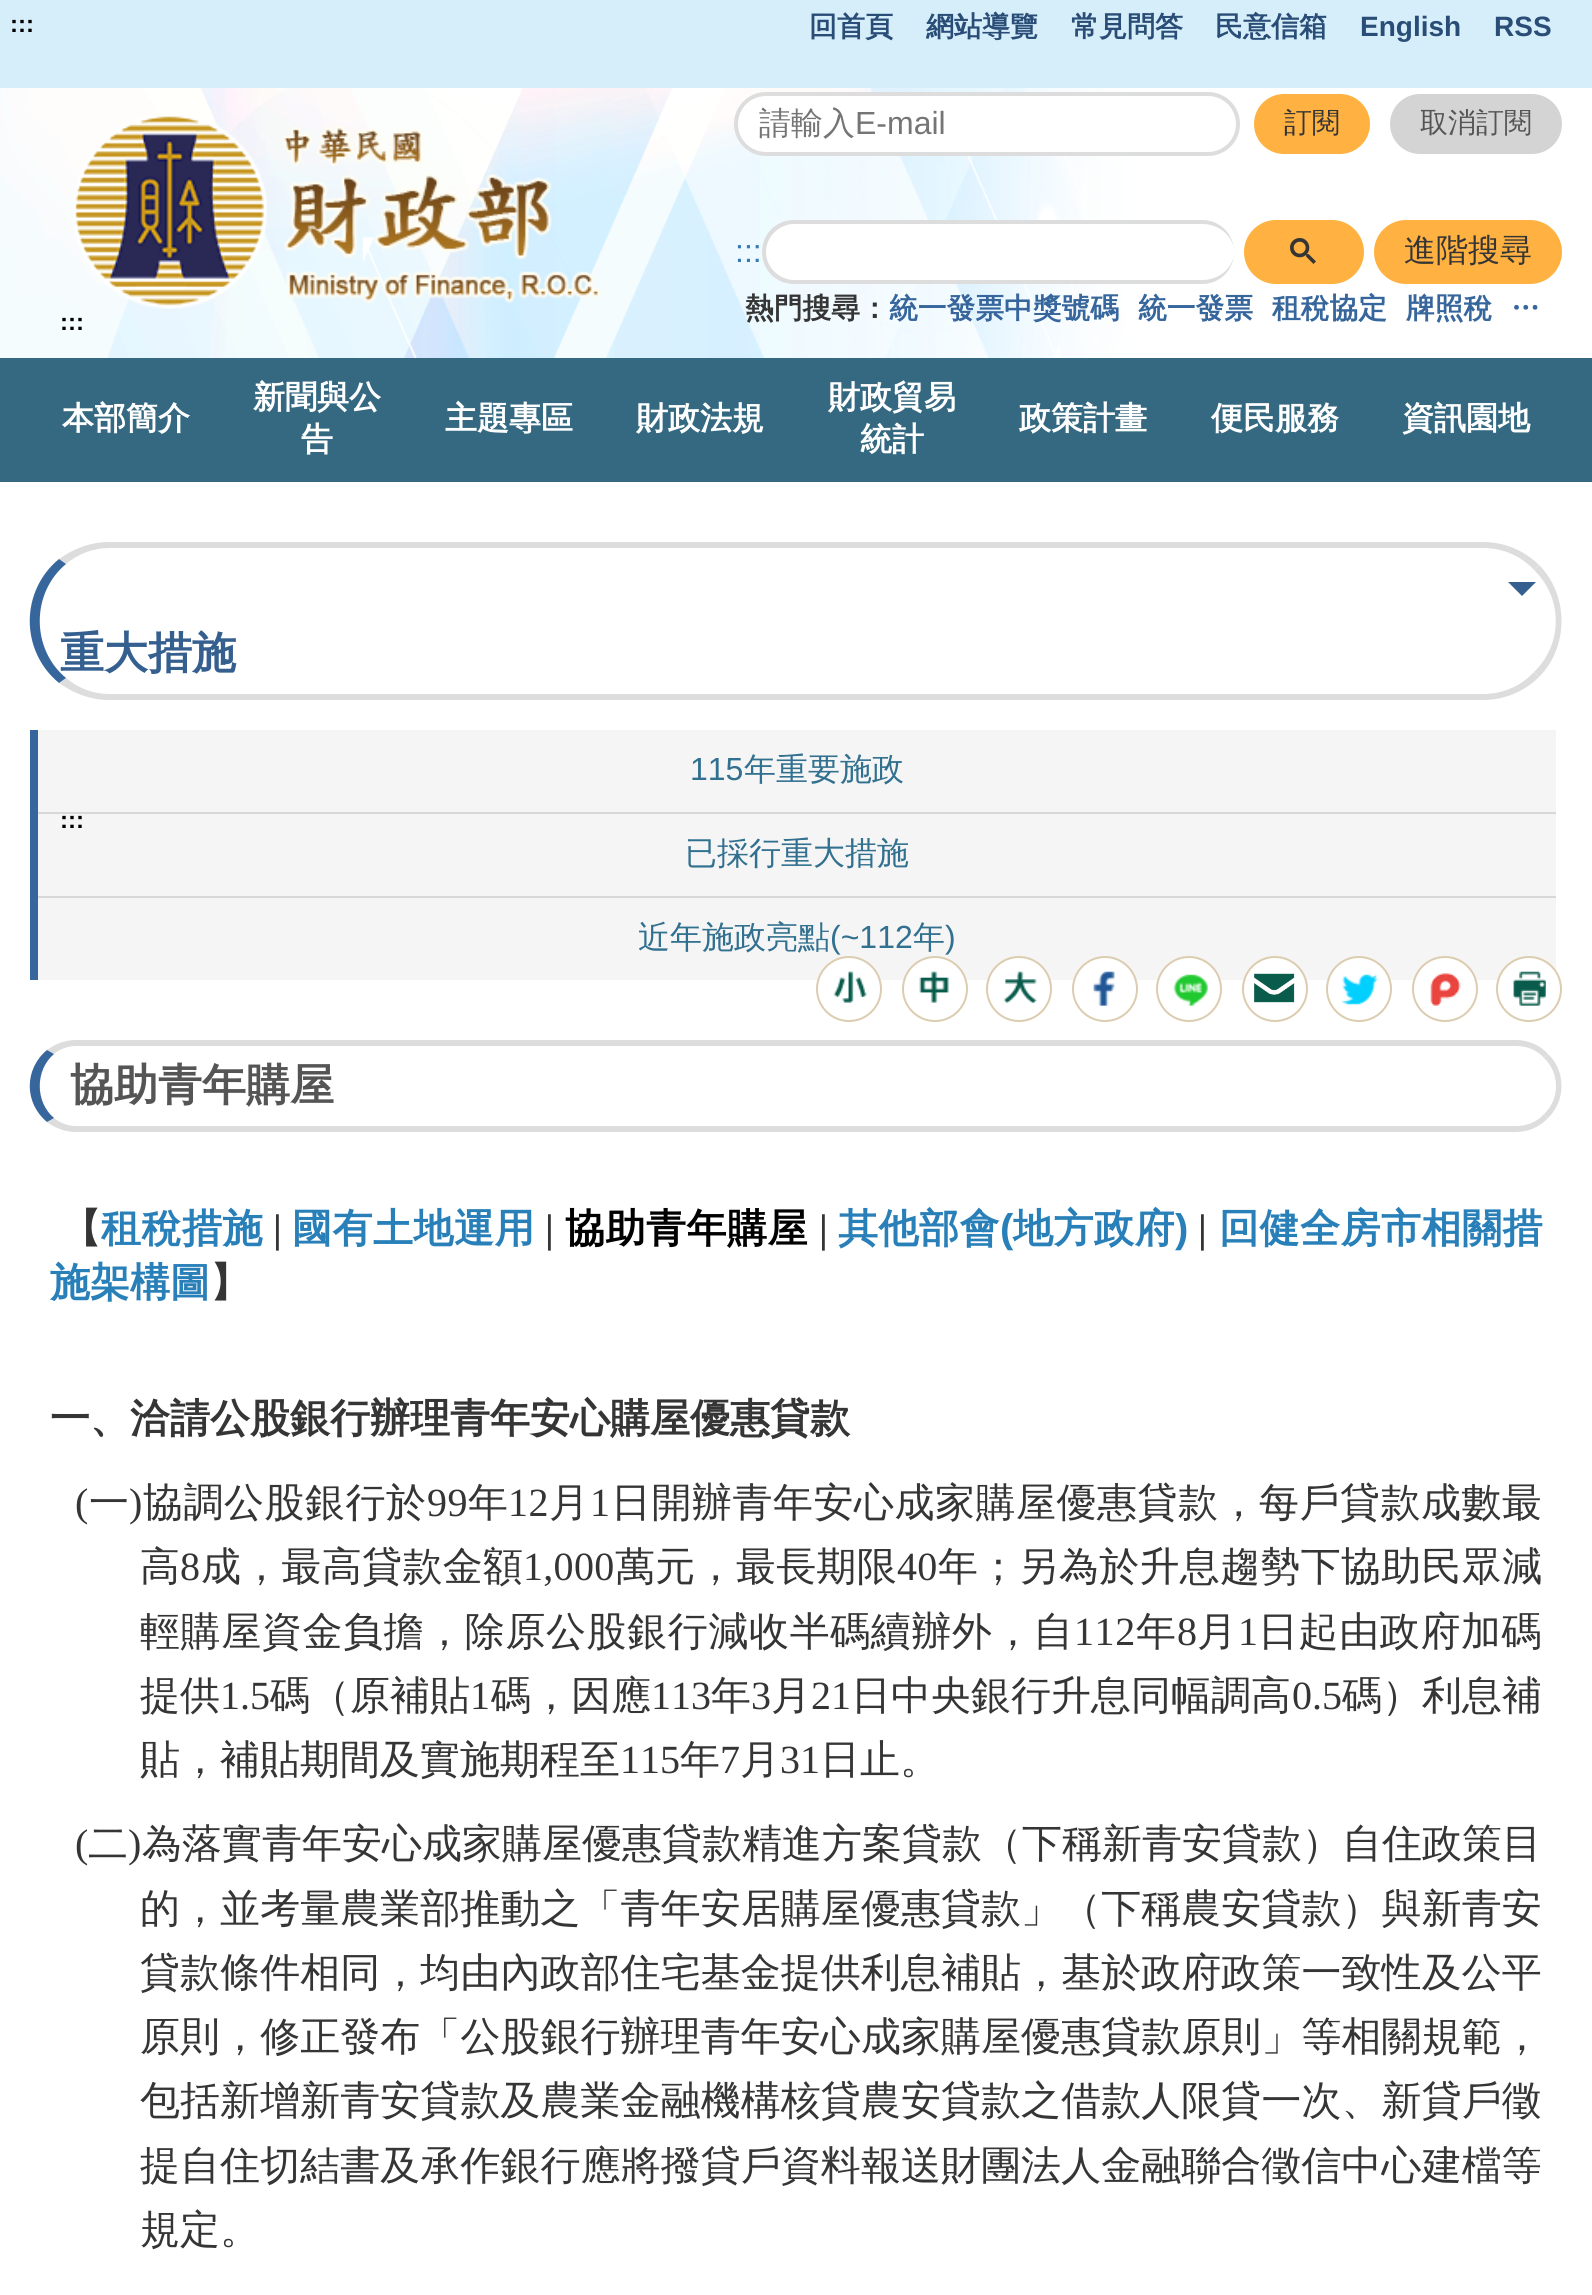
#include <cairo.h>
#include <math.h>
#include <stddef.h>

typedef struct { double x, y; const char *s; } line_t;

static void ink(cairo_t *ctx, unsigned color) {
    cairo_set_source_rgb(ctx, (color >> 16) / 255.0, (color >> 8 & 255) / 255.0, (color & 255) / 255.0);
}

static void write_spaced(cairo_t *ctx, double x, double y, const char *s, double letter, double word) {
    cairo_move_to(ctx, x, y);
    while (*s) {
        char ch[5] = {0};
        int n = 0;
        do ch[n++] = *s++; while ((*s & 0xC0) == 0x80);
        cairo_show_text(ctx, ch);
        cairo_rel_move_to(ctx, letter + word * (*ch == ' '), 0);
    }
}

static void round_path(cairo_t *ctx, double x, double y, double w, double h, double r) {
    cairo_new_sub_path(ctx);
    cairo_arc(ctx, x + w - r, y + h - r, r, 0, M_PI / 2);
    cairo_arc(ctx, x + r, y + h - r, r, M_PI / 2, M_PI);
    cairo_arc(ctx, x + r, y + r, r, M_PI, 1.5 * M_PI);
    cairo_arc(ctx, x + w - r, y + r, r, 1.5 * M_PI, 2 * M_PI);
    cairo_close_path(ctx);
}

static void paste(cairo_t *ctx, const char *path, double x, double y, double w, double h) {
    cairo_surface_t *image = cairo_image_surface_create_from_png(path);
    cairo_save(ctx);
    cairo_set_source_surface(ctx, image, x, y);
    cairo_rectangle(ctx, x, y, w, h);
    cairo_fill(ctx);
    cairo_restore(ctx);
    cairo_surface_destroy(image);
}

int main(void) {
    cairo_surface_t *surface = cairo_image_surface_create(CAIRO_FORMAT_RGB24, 1592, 2295);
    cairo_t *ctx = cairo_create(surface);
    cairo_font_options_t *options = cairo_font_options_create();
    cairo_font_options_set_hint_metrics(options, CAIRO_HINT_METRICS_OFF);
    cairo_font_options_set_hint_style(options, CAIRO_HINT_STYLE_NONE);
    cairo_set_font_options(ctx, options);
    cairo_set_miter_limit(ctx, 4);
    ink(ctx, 0xFFFFFF);
    cairo_paint(ctx);
    ink(ctx, 0xD6EEFA);
    cairo_rectangle(ctx, 0, 0, 1592, 88);
    cairo_fill(ctx);
    paste(ctx, "media/1.png", 0, 88, 1592, 270);
    cairo_select_font_face(ctx, "Liberation Sans", CAIRO_FONT_SLANT_NORMAL, CAIRO_FONT_WEIGHT_BOLD);
    cairo_set_font_size(ctx, 24);
    ink(ctx, 0x000000);
    cairo_move_to(ctx, 10, 32);
    cairo_show_text(ctx, ":::");
    cairo_select_font_face(ctx, "WenQuanYi Zen Hei", CAIRO_FONT_SLANT_NORMAL, CAIRO_FONT_WEIGHT_BOLD);
    cairo_set_font_size(ctx, 28);
    ink(ctx, 0x294D76);
    {
        static const line_t items[] = {
            {809, 36, "回首頁"},
            {926, 36, "網站導覽"},
            {1071, 36, "常見問答"},
            {1215, 36, "民意信箱"},
        };
        for (size_t i = 0; i < sizeof items / sizeof *items; i++) {
            cairo_move_to(ctx, items[i].x, items[i].y);
            cairo_show_text(ctx, items[i].s);
        }
    }
    cairo_select_font_face(ctx, "Liberation Sans", CAIRO_FONT_SLANT_NORMAL, CAIRO_FONT_WEIGHT_BOLD);
    cairo_move_to(ctx, 1360, 36);
    cairo_show_text(ctx, "English");
    cairo_move_to(ctx, 1494, 36);
    cairo_show_text(ctx, "RSS");
    paste(ctx, "media/2.png", 73, 116, 528, 193);
    ink(ctx, 0xFFFFFF);
    round_path(ctx, 736, 94, 502, 60, 30);
    cairo_fill_preserve(ctx);
    ink(ctx, 0xDDDDDD);
    cairo_set_line_width(ctx, 4);
    cairo_stroke(ctx);
    cairo_select_font_face(ctx, "WenQuanYi Zen Hei Medium", CAIRO_FONT_SLANT_NORMAL, CAIRO_FONT_WEIGHT_NORMAL);
    cairo_set_font_size(ctx, 32);
    ink(ctx, 0x757575);
    cairo_move_to(ctx, 759, 134);
    cairo_show_text(ctx, "請輸入");
    cairo_select_font_face(ctx, "Liberation Sans", CAIRO_FONT_SLANT_NORMAL, CAIRO_FONT_WEIGHT_NORMAL);
    cairo_move_to(ctx, 855, 134);
    cairo_show_text(ctx, "E-mail");
    ink(ctx, 0xFFB141);
    round_path(ctx, 1254, 94, 116, 60, 30);
    cairo_fill(ctx);
    cairo_select_font_face(ctx, "WenQuanYi Zen Hei Medium", CAIRO_FONT_SLANT_NORMAL, CAIRO_FONT_WEIGHT_NORMAL);
    cairo_set_font_size(ctx, 28);
    ink(ctx, 0x353535);
    cairo_move_to(ctx, 1284, 132);
    cairo_show_text(ctx, "訂閱");
    ink(ctx, 0xD4D4D4);
    round_path(ctx, 1390, 94, 172, 60, 30);
    cairo_fill(ctx);
    ink(ctx, 0x555555);
    cairo_move_to(ctx, 1420, 132);
    cairo_show_text(ctx, "取消訂閱");
    cairo_select_font_face(ctx, "Liberation Sans", CAIRO_FONT_SLANT_NORMAL, CAIRO_FONT_WEIGHT_NORMAL);
    cairo_set_font_size(ctx, 32);
    ink(ctx, 0x337AB7);
    cairo_move_to(ctx, 735, 262);
    cairo_show_text(ctx, ":::");
    ink(ctx, 0xFFFFFF);
    round_path(ctx, 762, 220, 472, 64, 32);
    cairo_fill(ctx);
    ink(ctx, 0xDDDDDD);
    cairo_set_fill_rule(ctx, CAIRO_FILL_RULE_EVEN_ODD);
    cairo_new_path(ctx);
    cairo_move_to(ctx, 794, 220);
    cairo_line_to(ctx, 1202, 220);
    cairo_curve_to(ctx, 1220, 220, 1234, 234, 1234, 252);
    cairo_curve_to(ctx, 1234, 270, 1220, 284, 1202, 284);
    cairo_line_to(ctx, 794, 284);
    cairo_curve_to(ctx, 776, 284, 762, 270, 762, 252);
    cairo_curve_to(ctx, 762, 234, 776, 220, 794, 220);
    cairo_close_path(ctx);
    cairo_move_to(ctx, 794, 224);
    cairo_line_to(ctx, 1202, 224);
    cairo_curve_to(ctx, 1220, 224, 1234, 237, 1234, 252);
    cairo_curve_to(ctx, 1234, 267, 1220, 280, 1202, 280);
    cairo_line_to(ctx, 794, 280);
    cairo_curve_to(ctx, 779, 280, 766, 267, 766, 252);
    cairo_curve_to(ctx, 766, 237, 779, 224, 794, 224);
    cairo_close_path(ctx);
    cairo_fill(ctx);
    ink(ctx, 0xFFB141);
    round_path(ctx, 1244, 220, 120, 64, 32);
    cairo_fill(ctx);
    paste(ctx, "media/3.png", 1290, 238, 26, 26);
    round_path(ctx, 1374, 220, 188, 64, 32);
    cairo_fill(ctx);
    cairo_select_font_face(ctx, "WenQuanYi Zen Hei Medium", CAIRO_FONT_SLANT_NORMAL, CAIRO_FONT_WEIGHT_NORMAL);
    ink(ctx, 0x353535);
    cairo_move_to(ctx, 1404, 261);
    cairo_show_text(ctx, "進階搜尋");
    cairo_select_font_face(ctx, "WenQuanYi Zen Hei", CAIRO_FONT_SLANT_NORMAL, CAIRO_FONT_WEIGHT_BOLD);
    cairo_set_font_size(ctx, 28.75);
    cairo_move_to(ctx, 745, 318);
    cairo_show_text(ctx, "熱門搜尋：");
    ink(ctx, 0x36669C);
    {
        static const line_t items[] = {
            {889, 318, "統一發票中獎號碼"},
            {1138, 318, "統一發票"},
            {1272, 318, "租稅協定"},
            {1406, 318, "牌照稅"},
            {1511, 318, "…"},
        };
        for (size_t i = 0; i < sizeof items / sizeof *items; i++) {
            cairo_move_to(ctx, items[i].x, items[i].y);
            cairo_show_text(ctx, items[i].s);
        }
    }
    cairo_select_font_face(ctx, "Liberation Sans", CAIRO_FONT_SLANT_NORMAL, CAIRO_FONT_WEIGHT_BOLD);
    cairo_set_font_size(ctx, 24);
    ink(ctx, 0x000000);
    cairo_move_to(ctx, 60, 330);
    cairo_show_text(ctx, ":::");
    ink(ctx, 0xDDDDDD);
    cairo_set_fill_rule(ctx, CAIRO_FILL_RULE_WINDING);
    cairo_new_path(ctx);
    cairo_move_to(ctx, 109, 542);
    cairo_curve_to(ctx, 90, 542, 73, 549, 59, 559);
    cairo_line_to(ctx, 66, 564);
    cairo_curve_to(ctx, 78, 554, 93, 548, 109, 548);
    cairo_line_to(ctx, 1483, 548);
    cairo_curve_to(ctx, 1503, 548, 1521, 556, 1534, 570);
    cairo_line_to(ctx, 1539, 565);
    cairo_curve_to(ctx, 1525, 551, 1505, 542, 1483, 542);
    cairo_close_path(ctx);
    cairo_fill(ctx);
    cairo_new_path(ctx);
    cairo_move_to(ctx, 1539, 565);
    cairo_curve_to(ctx, 1569, 595, 1569, 647, 1539, 677);
    cairo_line_to(ctx, 1534, 672);
    cairo_curve_to(ctx, 1563, 644, 1563, 598, 1534, 570);
    cairo_close_path(ctx);
    cairo_fill(ctx);
    cairo_new_path(ctx);
    cairo_move_to(ctx, 109, 700);
    cairo_line_to(ctx, 1483, 700);
    cairo_curve_to(ctx, 1505, 700, 1525, 691, 1539, 677);
    cairo_line_to(ctx, 1534, 672);
    cairo_curve_to(ctx, 1521, 686, 1503, 694, 1483, 694);
    cairo_line_to(ctx, 109, 694);
    cairo_curve_to(ctx, 93, 694, 78, 688, 66, 678);
    cairo_line_to(ctx, 59, 683);
    cairo_curve_to(ctx, 73, 693, 90, 700, 109, 700);
    cairo_close_path(ctx);
    cairo_fill(ctx);
    ink(ctx, 0x36669C);
    cairo_new_path(ctx);
    cairo_move_to(ctx, 59, 683);
    cairo_curve_to(ctx, 20, 651, 20, 591, 59, 559);
    cairo_line_to(ctx, 66, 564);
    cairo_curve_to(ctx, 31, 593, 31, 649, 66, 678);
    cairo_close_path(ctx);
    cairo_fill(ctx);
    ink(ctx, 0x345F8F);
    cairo_new_path(ctx);
    cairo_move_to(ctx, 1508, 582);
    cairo_line_to(ctx, 1536, 582);
    cairo_line_to(ctx, 1522, 596);
    cairo_close_path(ctx);
    cairo_fill(ctx);
    cairo_select_font_face(ctx, "WenQuanYi Zen Hei", CAIRO_FONT_SLANT_NORMAL, CAIRO_FONT_WEIGHT_BOLD);
    cairo_set_font_size(ctx, 44);
    cairo_move_to(ctx, 60, 668);
    cairo_show_text(ctx, "重大措施");
    ink(ctx, 0x36669C);
    cairo_rectangle(ctx, 30, 730, 8, 250);
    cairo_fill(ctx);
    ink(ctx, 0xF5F5F5);
    cairo_rectangle(ctx, 38, 730, 1518, 82);
    cairo_fill(ctx);
    cairo_select_font_face(ctx, "Liberation Sans", CAIRO_FONT_SLANT_NORMAL, CAIRO_FONT_WEIGHT_NORMAL);
    cairo_set_font_size(ctx, 32);
    ink(ctx, 0x31708F);
    cairo_move_to(ctx, 690, 780);
    cairo_show_text(ctx, "115");
    cairo_select_font_face(ctx, "WenQuanYi Zen Hei Medium", CAIRO_FONT_SLANT_NORMAL, CAIRO_FONT_WEIGHT_NORMAL);
    cairo_move_to(ctx, 744, 780);
    cairo_show_text(ctx, "年重要施政");
    ink(ctx, 0xD8D8D8);
    cairo_rectangle(ctx, 38, 812, 1518, 2);
    cairo_fill(ctx);
    ink(ctx, 0xF5F5F5);
    cairo_rectangle(ctx, 38, 814, 1518, 82);
    cairo_fill(ctx);
    ink(ctx, 0x31708F);
    cairo_move_to(ctx, 685, 864);
    cairo_show_text(ctx, "已採行重大措施");
    ink(ctx, 0xD8D8D8);
    cairo_rectangle(ctx, 38, 896, 1518, 2);
    cairo_fill(ctx);
    ink(ctx, 0xF5F5F5);
    cairo_rectangle(ctx, 38, 898, 1518, 82);
    cairo_fill(ctx);
    ink(ctx, 0x31708F);
    cairo_move_to(ctx, 638, 948);
    cairo_show_text(ctx, "近年施政亮點");
    cairo_select_font_face(ctx, "Liberation Sans", CAIRO_FONT_SLANT_NORMAL, CAIRO_FONT_WEIGHT_NORMAL);
    cairo_move_to(ctx, 830, 948);
    cairo_show_text(ctx, "(~112");
    cairo_select_font_face(ctx, "WenQuanYi Zen Hei Medium", CAIRO_FONT_SLANT_NORMAL, CAIRO_FONT_WEIGHT_NORMAL);
    cairo_move_to(ctx, 913, 948);
    cairo_show_text(ctx, "年");
    cairo_select_font_face(ctx, "Liberation Sans", CAIRO_FONT_SLANT_NORMAL, CAIRO_FONT_WEIGHT_NORMAL);
    cairo_move_to(ctx, 945, 948);
    cairo_show_text(ctx, ")");
    cairo_select_font_face(ctx, "Liberation Sans", CAIRO_FONT_SLANT_NORMAL, CAIRO_FONT_WEIGHT_BOLD);
    cairo_set_font_size(ctx, 24);
    ink(ctx, 0x000000);
    cairo_move_to(ctx, 60, 828);
    cairo_show_text(ctx, ":::");
    ink(ctx, 0xFFFFFF);
    cairo_new_path(ctx);
    cairo_arc(ctx, 849, 989, 32, 0, 2 * M_PI);
    cairo_fill_preserve(ctx);
    ink(ctx, 0xDCCCB0);
    cairo_set_line_width(ctx, 2);
    cairo_stroke(ctx);
    paste(ctx, "media/4.png", 833, 971, 34, 32);
    ink(ctx, 0xFFFFFF);
    cairo_arc(ctx, 935, 989, 32, 0, 2 * M_PI);
    cairo_fill_preserve(ctx);
    ink(ctx, 0xDCCCB0);
    cairo_stroke(ctx);
    paste(ctx, "media/5.png", 919, 971, 30, 32);
    ink(ctx, 0xFFFFFF);
    cairo_arc(ctx, 1019, 989, 32, 0, 2 * M_PI);
    cairo_fill_preserve(ctx);
    ink(ctx, 0xDCCCB0);
    cairo_stroke(ctx);
    paste(ctx, "media/6.png", 1003, 971, 34, 32);
    ink(ctx, 0xFFFFFF);
    cairo_arc(ctx, 1105, 989, 32, 0, 2 * M_PI);
    cairo_fill_preserve(ctx);
    ink(ctx, 0xDCCCB0);
    cairo_stroke(ctx);
    paste(ctx, "media/7.png", 1093, 971, 22, 35);
    ink(ctx, 0xFFFFFF);
    cairo_arc(ctx, 1189, 989, 32, 0, 2 * M_PI);
    cairo_fill_preserve(ctx);
    ink(ctx, 0xDCCCB0);
    cairo_stroke(ctx);
    paste(ctx, "media/8.png", 1173, 974, 35, 32);
    ink(ctx, 0xFFFFFF);
    cairo_arc(ctx, 1275, 989, 32, 0, 2 * M_PI);
    cairo_fill_preserve(ctx);
    ink(ctx, 0xDCCCB0);
    cairo_stroke(ctx);
    paste(ctx, "media/9.png", 1254, 973, 41, 30);
    ink(ctx, 0xFFFFFF);
    cairo_arc(ctx, 1359, 989, 32, 0, 2 * M_PI);
    cairo_fill_preserve(ctx);
    ink(ctx, 0xDCCCB0);
    cairo_stroke(ctx);
    paste(ctx, "media/10.png", 1342, 974, 36, 31);
    ink(ctx, 0xFFFFFF);
    cairo_arc(ctx, 1445, 989, 32, 0, 2 * M_PI);
    cairo_fill_preserve(ctx);
    ink(ctx, 0xDCCCB0);
    cairo_stroke(ctx);
    paste(ctx, "media/11.png", 1430, 973, 31, 33);
    ink(ctx, 0xFFFFFF);
    cairo_arc(ctx, 1529, 989, 32, 0, 2 * M_PI);
    cairo_fill_preserve(ctx);
    ink(ctx, 0xDCCCB0);
    cairo_stroke(ctx);
    paste(ctx, "media/12.png", 1513, 971, 33, 35);
    ink(ctx, 0xDDDDDD);
    cairo_new_path(ctx);
    cairo_move_to(ctx, 76, 1040);
    cairo_curve_to(ctx, 65, 1040, 55, 1044, 47, 1050);
    cairo_line_to(ctx, 54, 1054);
    cairo_curve_to(ctx, 60, 1049, 68, 1046, 76, 1046);
    cairo_line_to(ctx, 1516, 1046);
    cairo_curve_to(ctx, 1527, 1046, 1537, 1050, 1544, 1058);
    cairo_line_to(ctx, 1548, 1054);
    cairo_curve_to(ctx, 1540, 1045, 1528, 1040, 1516, 1040);
    cairo_close_path(ctx);
    cairo_fill(ctx);
    cairo_new_path(ctx);
    cairo_move_to(ctx, 1548, 1054);
    cairo_curve_to(ctx, 1566, 1071, 1566, 1101, 1548, 1118);
    cairo_line_to(ctx, 1544, 1114);
    cairo_curve_to(ctx, 1560, 1099, 1560, 1073, 1544, 1058);
    cairo_close_path(ctx);
    cairo_fill(ctx);
    cairo_new_path(ctx);
    cairo_move_to(ctx, 76, 1132);
    cairo_line_to(ctx, 1516, 1132);
    cairo_curve_to(ctx, 1528, 1132, 1540, 1127, 1548, 1118);
    cairo_line_to(ctx, 1544, 1114);
    cairo_curve_to(ctx, 1537, 1122, 1527, 1126, 1516, 1126);
    cairo_line_to(ctx, 76, 1126);
    cairo_curve_to(ctx, 68, 1126, 60, 1123, 54, 1118);
    cairo_line_to(ctx, 47, 1122);
    cairo_curve_to(ctx, 55, 1128, 65, 1132, 76, 1132);
    cairo_close_path(ctx);
    cairo_fill(ctx);
    ink(ctx, 0x36669C);
    cairo_new_path(ctx);
    cairo_move_to(ctx, 47, 1122);
    cairo_curve_to(ctx, 24, 1103, 24, 1069, 47, 1050);
    cairo_line_to(ctx, 54, 1054);
    cairo_curve_to(ctx, 35, 1070, 35, 1102, 54, 1118);
    cairo_close_path(ctx);
    cairo_fill(ctx);
    cairo_select_font_face(ctx, "WenQuanYi Zen Hei", CAIRO_FONT_SLANT_NORMAL, CAIRO_FONT_WEIGHT_BOLD);
    cairo_set_font_size(ctx, 44);
    ink(ctx, 0x555555);
    cairo_move_to(ctx, 70, 1100);
    cairo_show_text(ctx, "協助青年購屋");
    cairo_set_font_size(ctx, 40);
    ink(ctx, 0x353535);
    cairo_move_to(ctx, 61, 1242);
    cairo_show_text(ctx, "【");
    ink(ctx, 0x2980B9);
    write_spaced(ctx, 101, 1242, "租稅措施", 0.5, 0);
    cairo_select_font_face(ctx, "Liberation Serif", CAIRO_FONT_SLANT_NORMAL, CAIRO_FONT_WEIGHT_BOLD);
    ink(ctx, 0x353535);
    cairo_move_to(ctx, 273, 1242);
    cairo_show_text(ctx, "|");
    cairo_select_font_face(ctx, "WenQuanYi Zen Hei", CAIRO_FONT_SLANT_NORMAL, CAIRO_FONT_WEIGHT_BOLD);
    ink(ctx, 0x2980B9);
    write_spaced(ctx, 292, 1242, "國有土地運用", 0.5, 0);
    cairo_select_font_face(ctx, "Liberation Serif", CAIRO_FONT_SLANT_NORMAL, CAIRO_FONT_WEIGHT_BOLD);
    ink(ctx, 0x353535);
    cairo_move_to(ctx, 545, 1242);
    cairo_show_text(ctx, "|");
    cairo_select_font_face(ctx, "WenQuanYi Zen Hei", CAIRO_FONT_SLANT_NORMAL, CAIRO_FONT_WEIGHT_BOLD);
    ink(ctx, 0x000000);
    write_spaced(ctx, 565, 1242, "協助青年購屋", 0.5, 0);
    cairo_select_font_face(ctx, "Liberation Serif", CAIRO_FONT_SLANT_NORMAL, CAIRO_FONT_WEIGHT_BOLD);
    ink(ctx, 0x353535);
    cairo_move_to(ctx, 819, 1242);
    cairo_show_text(ctx, "|");
    cairo_select_font_face(ctx, "WenQuanYi Zen Hei", CAIRO_FONT_SLANT_NORMAL, CAIRO_FONT_WEIGHT_BOLD);
    ink(ctx, 0x2980B9);
    write_spaced(ctx, 838, 1242, "其他部會", 0.5, 0);
    cairo_select_font_face(ctx, "Liberation Sans", CAIRO_FONT_SLANT_NORMAL, CAIRO_FONT_WEIGHT_BOLD);
    write_spaced(ctx, 1000, 1242, "(", 0.5, 0);
    cairo_select_font_face(ctx, "WenQuanYi Zen Hei", CAIRO_FONT_SLANT_NORMAL, CAIRO_FONT_WEIGHT_BOLD);
    write_spaced(ctx, 1013, 1242, "地方政府", 0.5, 0);
    cairo_select_font_face(ctx, "Liberation Sans", CAIRO_FONT_SLANT_NORMAL, CAIRO_FONT_WEIGHT_BOLD);
    write_spaced(ctx, 1175, 1242, ")", 0.5, 0);
    cairo_select_font_face(ctx, "Liberation Serif", CAIRO_FONT_SLANT_NORMAL, CAIRO_FONT_WEIGHT_BOLD);
    ink(ctx, 0x353535);
    cairo_move_to(ctx, 1198, 1242);
    cairo_show_text(ctx, "|");
    cairo_select_font_face(ctx, "WenQuanYi Zen Hei", CAIRO_FONT_SLANT_NORMAL, CAIRO_FONT_WEIGHT_BOLD);
    ink(ctx, 0x2980B9);
    write_spaced(ctx, 1219, 1242, "回健全房市相關措", 0.5, 0);
    cairo_move_to(ctx, 50, 1296);
    cairo_show_text(ctx, "施架構圖");
    ink(ctx, 0x353535);
    cairo_move_to(ctx, 210, 1296);
    cairo_show_text(ctx, "】");
    cairo_move_to(ctx, 50, 1432);
    cairo_show_text(ctx, "一、洽請公股銀行辦理青年安心購屋優惠貸款");
    cairo_select_font_face(ctx, "Liberation Serif", CAIRO_FONT_SLANT_NORMAL, CAIRO_FONT_WEIGHT_NORMAL);
    write_spaced(ctx, 75, 1516, "(", 0.5, 0);
    cairo_select_font_face(ctx, "WenQuanYi Zen Hei Medium", CAIRO_FONT_SLANT_NORMAL, CAIRO_FONT_WEIGHT_NORMAL);
    write_spaced(ctx, 89, 1516, "一", 0.5, 0);
    cairo_select_font_face(ctx, "Liberation Serif", CAIRO_FONT_SLANT_NORMAL, CAIRO_FONT_WEIGHT_NORMAL);
    write_spaced(ctx, 129, 1516, ")", 0.5, 0);
    cairo_select_font_face(ctx, "WenQuanYi Zen Hei Medium", CAIRO_FONT_SLANT_NORMAL, CAIRO_FONT_WEIGHT_NORMAL);
    write_spaced(ctx, 143, 1516, "協調公股銀行於", 0.5, 0);
    cairo_select_font_face(ctx, "Liberation Serif", CAIRO_FONT_SLANT_NORMAL, CAIRO_FONT_WEIGHT_NORMAL);
    write_spaced(ctx, 427, 1516, "99", 0.5, 0);
    cairo_select_font_face(ctx, "WenQuanYi Zen Hei Medium", CAIRO_FONT_SLANT_NORMAL, CAIRO_FONT_WEIGHT_NORMAL);
    write_spaced(ctx, 468, 1516, "年", 0.5, 0);
    cairo_select_font_face(ctx, "Liberation Serif", CAIRO_FONT_SLANT_NORMAL, CAIRO_FONT_WEIGHT_NORMAL);
    write_spaced(ctx, 508, 1516, "12", 0.5, 0);
    cairo_select_font_face(ctx, "WenQuanYi Zen Hei Medium", CAIRO_FONT_SLANT_NORMAL, CAIRO_FONT_WEIGHT_NORMAL);
    write_spaced(ctx, 549, 1516, "月", 0.5, 0);
    cairo_select_font_face(ctx, "Liberation Serif", CAIRO_FONT_SLANT_NORMAL, CAIRO_FONT_WEIGHT_NORMAL);
    write_spaced(ctx, 590, 1516, "1", 0.5, 0);
    cairo_select_font_face(ctx, "WenQuanYi Zen Hei Medium", CAIRO_FONT_SLANT_NORMAL, CAIRO_FONT_WEIGHT_NORMAL);
    write_spaced(ctx, 611, 1516, "日開辦青年安心成家購屋優惠貸款，每戶貸款成數最", 0.5, 0);
    write_spaced(ctx, 140, 1580, "高", 0.3, 0);
    cairo_select_font_face(ctx, "Liberation Serif", CAIRO_FONT_SLANT_NORMAL, CAIRO_FONT_WEIGHT_NORMAL);
    write_spaced(ctx, 180, 1580, "8", 0.3, 0);
    cairo_select_font_face(ctx, "WenQuanYi Zen Hei Medium", CAIRO_FONT_SLANT_NORMAL, CAIRO_FONT_WEIGHT_NORMAL);
    write_spaced(ctx, 201, 1580, "成，最高貸款金額", 0.3, 0);
    cairo_select_font_face(ctx, "Liberation Serif", CAIRO_FONT_SLANT_NORMAL, CAIRO_FONT_WEIGHT_NORMAL);
    write_spaced(ctx, 523, 1580, "1,000", 0.3, 0);
    cairo_select_font_face(ctx, "WenQuanYi Zen Hei Medium", CAIRO_FONT_SLANT_NORMAL, CAIRO_FONT_WEIGHT_NORMAL);
    write_spaced(ctx, 615, 1580, "萬元，最長期限", 0.3, 0);
    cairo_select_font_face(ctx, "Liberation Serif", CAIRO_FONT_SLANT_NORMAL, CAIRO_FONT_WEIGHT_NORMAL);
    write_spaced(ctx, 897, 1580, "40", 0.3, 0);
    cairo_select_font_face(ctx, "WenQuanYi Zen Hei Medium", CAIRO_FONT_SLANT_NORMAL, CAIRO_FONT_WEIGHT_NORMAL);
    write_spaced(ctx, 938, 1580, "年；另為於升息趨勢下協助民眾減", 0.3, 0);
    write_spaced(ctx, 140, 1645, "輕購屋資金負擔，除原公股銀行減收半碼續辦外，自", 0.6, 0);
    cairo_select_font_face(ctx, "Liberation Serif", CAIRO_FONT_SLANT_NORMAL, CAIRO_FONT_WEIGHT_NORMAL);
    write_spaced(ctx, 1074, 1645, "112", 0.6, 0);
    cairo_select_font_face(ctx, "WenQuanYi Zen Hei Medium", CAIRO_FONT_SLANT_NORMAL, CAIRO_FONT_WEIGHT_NORMAL);
    write_spaced(ctx, 1136, 1645, "年", 0.6, 0);
    cairo_select_font_face(ctx, "Liberation Serif", CAIRO_FONT_SLANT_NORMAL, CAIRO_FONT_WEIGHT_NORMAL);
    write_spaced(ctx, 1177, 1645, "8", 0.6, 0);
    cairo_select_font_face(ctx, "WenQuanYi Zen Hei Medium", CAIRO_FONT_SLANT_NORMAL, CAIRO_FONT_WEIGHT_NORMAL);
    write_spaced(ctx, 1197, 1645, "月", 0.6, 0);
    cairo_select_font_face(ctx, "Liberation Serif", CAIRO_FONT_SLANT_NORMAL, CAIRO_FONT_WEIGHT_NORMAL);
    write_spaced(ctx, 1238, 1645, "1", 0.6, 0);
    cairo_select_font_face(ctx, "WenQuanYi Zen Hei Medium", CAIRO_FONT_SLANT_NORMAL, CAIRO_FONT_WEIGHT_NORMAL);
    write_spaced(ctx, 1258, 1645, "日起由政府加碼", 0.6, 0);
    cairo_move_to(ctx, 140, 1709);
    cairo_show_text(ctx, "提供");
    cairo_select_font_face(ctx, "Liberation Serif", CAIRO_FONT_SLANT_NORMAL, CAIRO_FONT_WEIGHT_NORMAL);
    cairo_move_to(ctx, 220, 1709);
    cairo_show_text(ctx, "1.5");
    cairo_select_font_face(ctx, "WenQuanYi Zen Hei Medium", CAIRO_FONT_SLANT_NORMAL, CAIRO_FONT_WEIGHT_NORMAL);
    cairo_move_to(ctx, 270, 1709);
    cairo_show_text(ctx, "碼（原補貼");
    cairo_select_font_face(ctx, "Liberation Serif", CAIRO_FONT_SLANT_NORMAL, CAIRO_FONT_WEIGHT_NORMAL);
    cairo_move_to(ctx, 470, 1709);
    cairo_show_text(ctx, "1");
    cairo_select_font_face(ctx, "WenQuanYi Zen Hei Medium", CAIRO_FONT_SLANT_NORMAL, CAIRO_FONT_WEIGHT_NORMAL);
    cairo_move_to(ctx, 491, 1709);
    cairo_show_text(ctx, "碼，因應");
    cairo_select_font_face(ctx, "Liberation Serif", CAIRO_FONT_SLANT_NORMAL, CAIRO_FONT_WEIGHT_NORMAL);
    cairo_move_to(ctx, 651, 1709);
    cairo_show_text(ctx, "113");
    cairo_select_font_face(ctx, "WenQuanYi Zen Hei Medium", CAIRO_FONT_SLANT_NORMAL, CAIRO_FONT_WEIGHT_NORMAL);
    cairo_move_to(ctx, 711, 1709);
    cairo_show_text(ctx, "年");
    cairo_select_font_face(ctx, "Liberation Serif", CAIRO_FONT_SLANT_NORMAL, CAIRO_FONT_WEIGHT_NORMAL);
    cairo_move_to(ctx, 751, 1709);
    cairo_show_text(ctx, "3");
    cairo_select_font_face(ctx, "WenQuanYi Zen Hei Medium", CAIRO_FONT_SLANT_NORMAL, CAIRO_FONT_WEIGHT_NORMAL);
    cairo_move_to(ctx, 771, 1709);
    cairo_show_text(ctx, "月");
    cairo_select_font_face(ctx, "Liberation Serif", CAIRO_FONT_SLANT_NORMAL, CAIRO_FONT_WEIGHT_NORMAL);
    cairo_move_to(ctx, 811, 1709);
    cairo_show_text(ctx, "21");
    cairo_select_font_face(ctx, "WenQuanYi Zen Hei Medium", CAIRO_FONT_SLANT_NORMAL, CAIRO_FONT_WEIGHT_NORMAL);
    cairo_move_to(ctx, 851, 1709);
    cairo_show_text(ctx, "日中央銀行升息同幅調高");
    cairo_select_font_face(ctx, "Liberation Serif", CAIRO_FONT_SLANT_NORMAL, CAIRO_FONT_WEIGHT_NORMAL);
    cairo_move_to(ctx, 1292, 1709);
    cairo_show_text(ctx, "0.5");
    cairo_select_font_face(ctx, "WenQuanYi Zen Hei Medium", CAIRO_FONT_SLANT_NORMAL, CAIRO_FONT_WEIGHT_NORMAL);
    cairo_move_to(ctx, 1342, 1709);
    cairo_show_text(ctx, "碼）利息補");
    cairo_move_to(ctx, 140, 1773);
    cairo_show_text(ctx, "貼，補貼期間及實施期程至");
    cairo_select_font_face(ctx, "Liberation Serif", CAIRO_FONT_SLANT_NORMAL, CAIRO_FONT_WEIGHT_NORMAL);
    cairo_move_to(ctx, 620, 1773);
    cairo_show_text(ctx, "115");
    cairo_select_font_face(ctx, "WenQuanYi Zen Hei Medium", CAIRO_FONT_SLANT_NORMAL, CAIRO_FONT_WEIGHT_NORMAL);
    cairo_move_to(ctx, 680, 1773);
    cairo_show_text(ctx, "年");
    cairo_select_font_face(ctx, "Liberation Serif", CAIRO_FONT_SLANT_NORMAL, CAIRO_FONT_WEIGHT_NORMAL);
    cairo_move_to(ctx, 720, 1773);
    cairo_show_text(ctx, "7");
    cairo_select_font_face(ctx, "WenQuanYi Zen Hei Medium", CAIRO_FONT_SLANT_NORMAL, CAIRO_FONT_WEIGHT_NORMAL);
    cairo_move_to(ctx, 740, 1773);
    cairo_show_text(ctx, "月");
    cairo_select_font_face(ctx, "Liberation Serif", CAIRO_FONT_SLANT_NORMAL, CAIRO_FONT_WEIGHT_NORMAL);
    cairo_move_to(ctx, 780, 1773);
    cairo_show_text(ctx, "31");
    cairo_select_font_face(ctx, "WenQuanYi Zen Hei Medium", CAIRO_FONT_SLANT_NORMAL, CAIRO_FONT_WEIGHT_NORMAL);
    cairo_move_to(ctx, 820, 1773);
    cairo_show_text(ctx, "日止。");
    cairo_select_font_face(ctx, "Liberation Serif", CAIRO_FONT_SLANT_NORMAL, CAIRO_FONT_WEIGHT_NORMAL);
    cairo_move_to(ctx, 75, 1857);
    cairo_show_text(ctx, "(");
    cairo_select_font_face(ctx, "WenQuanYi Zen Hei Medium", CAIRO_FONT_SLANT_NORMAL, CAIRO_FONT_WEIGHT_NORMAL);
    cairo_move_to(ctx, 88, 1857);
    cairo_show_text(ctx, "二");
    cairo_select_font_face(ctx, "Liberation Serif", CAIRO_FONT_SLANT_NORMAL, CAIRO_FONT_WEIGHT_NORMAL);
    cairo_move_to(ctx, 128, 1857);
    cairo_show_text(ctx, ")");
    cairo_select_font_face(ctx, "WenQuanYi Zen Hei Medium", CAIRO_FONT_SLANT_NORMAL, CAIRO_FONT_WEIGHT_NORMAL);
    cairo_move_to(ctx, 142, 1857);
    cairo_show_text(ctx, "為落實青年安心成家購屋優惠貸款精進方案貸款（下稱新青安貸款）自住政策目");
    {
        static const line_t items[] = {
            {140, 1922, "的，並考量農業部推動之「青年安居購屋優惠貸款」（下稱農安貸款）與新青安"},
            {140, 1986, "貸款條件相同，均由內政部住宅基金提供利息補貼，基於政府政策一致性及公平"},
            {140, 2050, "原則，修正發布「公股銀行辦理青年安心成家購屋優惠貸款原則」等相關規範，"},
            {140, 2114, "包括新增新青安貸款及農業金融機構核貸農安貸款之借款人限貸一次、新貸戶徵"},
            {140, 2179, "提自住切結書及承作銀行應將撥貸戶資料報送財團法人金融聯合徵信中心建檔等"},
        };
        for (size_t i = 0; i < sizeof items / sizeof *items; i++) {
            write_spaced(ctx, items[i].x, items[i].y, items[i].s, 0.05, 0);
        }
    }
    cairo_move_to(ctx, 140, 2243);
    cairo_show_text(ctx, "規定。");
    ink(ctx, 0x346981);
    cairo_rectangle(ctx, 0, 358, 1592, 124);
    cairo_fill(ctx);
    cairo_select_font_face(ctx, "WenQuanYi Zen Hei", CAIRO_FONT_SLANT_NORMAL, CAIRO_FONT_WEIGHT_BOLD);
    cairo_set_font_size(ctx, 32);
    ink(ctx, 0xFFFFFF);
    {
        static const line_t items[] = {
            {62, 429, "本部簡介"},
            {253, 408, "新聞與公"},
            {301, 450, "告"},
            {445, 429, "主題專區"},
            {636, 429, "財政法規"},
            {828, 408, "財政貿易"},
            {860, 450, "統計"},
            {1019, 429, "政策計畫"},
            {1211, 429, "便民服務"},
            {1402, 429, "資訊園地"},
        };
        for (size_t i = 0; i < sizeof items / sizeof *items; i++) {
            cairo_move_to(ctx, items[i].x, items[i].y);
            cairo_show_text(ctx, items[i].s);
        }
    }
    cairo_surface_write_to_png(surface, "image.png");
    cairo_font_options_destroy(options);
    cairo_destroy(ctx);
    cairo_surface_destroy(surface);
    return 0;
}
